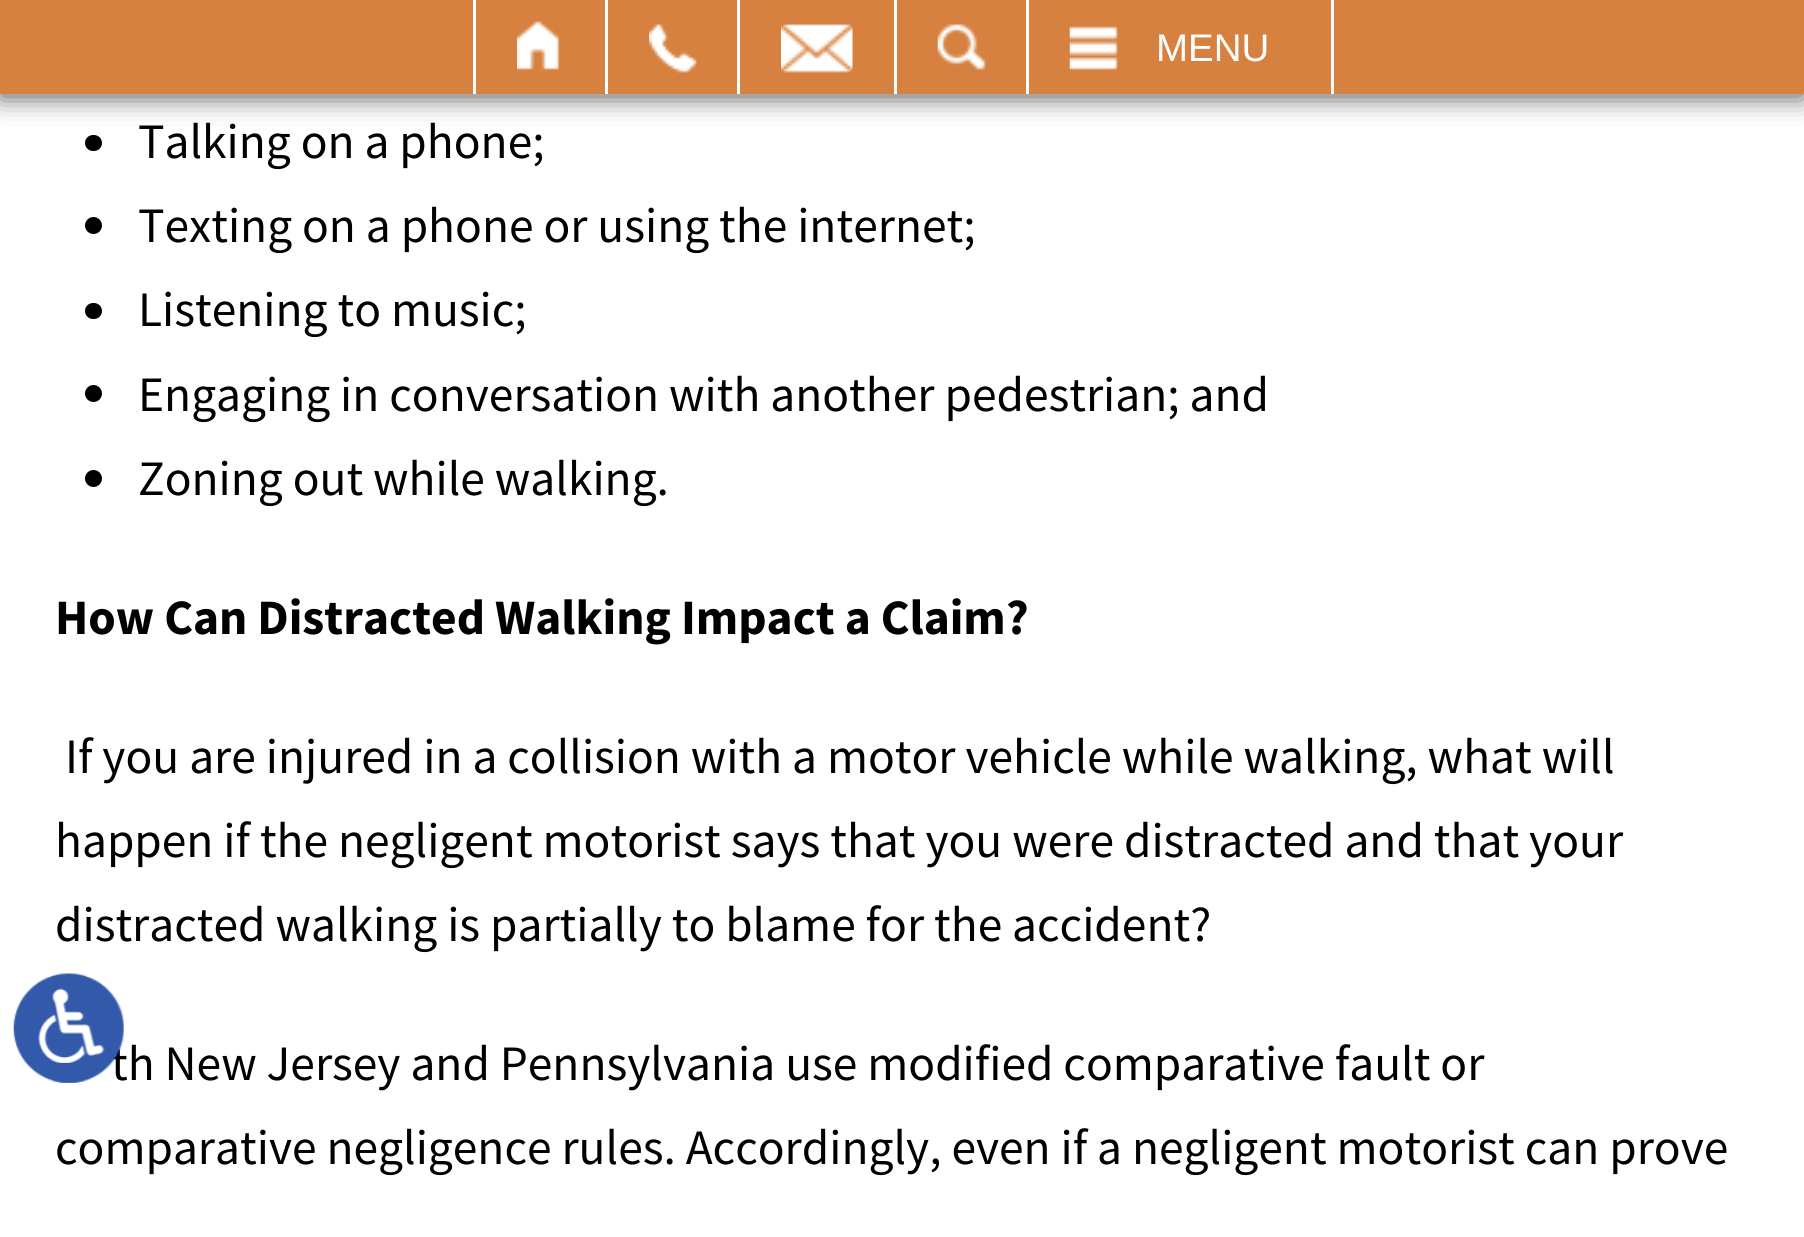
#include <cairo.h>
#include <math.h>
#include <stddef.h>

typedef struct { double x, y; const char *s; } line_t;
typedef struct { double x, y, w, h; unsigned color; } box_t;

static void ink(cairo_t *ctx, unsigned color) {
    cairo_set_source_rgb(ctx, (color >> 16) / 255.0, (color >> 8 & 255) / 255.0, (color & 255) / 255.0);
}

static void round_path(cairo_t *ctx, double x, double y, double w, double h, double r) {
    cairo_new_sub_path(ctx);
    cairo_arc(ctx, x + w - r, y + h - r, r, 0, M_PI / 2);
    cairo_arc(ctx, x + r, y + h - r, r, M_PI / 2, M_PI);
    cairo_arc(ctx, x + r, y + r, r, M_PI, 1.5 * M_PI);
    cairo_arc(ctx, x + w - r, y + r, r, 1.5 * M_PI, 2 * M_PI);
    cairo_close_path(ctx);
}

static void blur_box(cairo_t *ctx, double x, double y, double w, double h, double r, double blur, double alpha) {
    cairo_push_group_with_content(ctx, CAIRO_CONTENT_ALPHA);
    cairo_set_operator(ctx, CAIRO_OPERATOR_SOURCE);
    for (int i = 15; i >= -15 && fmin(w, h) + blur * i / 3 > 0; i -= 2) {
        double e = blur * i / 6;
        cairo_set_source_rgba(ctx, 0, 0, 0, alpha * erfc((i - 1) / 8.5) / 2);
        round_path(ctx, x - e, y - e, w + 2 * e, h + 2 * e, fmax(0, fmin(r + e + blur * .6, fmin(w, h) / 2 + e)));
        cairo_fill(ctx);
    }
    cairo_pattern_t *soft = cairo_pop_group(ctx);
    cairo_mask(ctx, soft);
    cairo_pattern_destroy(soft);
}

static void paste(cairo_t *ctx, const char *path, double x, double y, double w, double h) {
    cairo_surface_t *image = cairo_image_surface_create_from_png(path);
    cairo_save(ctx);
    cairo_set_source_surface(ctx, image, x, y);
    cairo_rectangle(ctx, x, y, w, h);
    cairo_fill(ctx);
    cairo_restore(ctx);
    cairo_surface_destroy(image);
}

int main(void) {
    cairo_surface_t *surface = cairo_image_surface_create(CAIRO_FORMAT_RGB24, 1804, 1237);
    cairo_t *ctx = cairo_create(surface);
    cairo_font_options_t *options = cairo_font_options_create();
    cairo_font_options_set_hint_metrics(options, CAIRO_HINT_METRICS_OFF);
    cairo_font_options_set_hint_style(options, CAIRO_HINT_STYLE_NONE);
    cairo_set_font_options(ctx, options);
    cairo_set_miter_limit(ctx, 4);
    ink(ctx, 0xFFFFFF);
    cairo_paint(ctx);
    ink(ctx, 0x000000);
    round_path(ctx, 85, 135, 17, 16, 8);
    cairo_fill(ctx);
    ink(ctx, 0x000000);
    blur_box(ctx, 0, 3, 1804, 93, 0, 14, 0.7);
    {
        static const box_t items[] = {
            {0, 0, 1804, 94, 0xD68140},
            {605, 0, 3, 94, 0xFFFFFF},
            {473, 0, 3, 94, 0xFFFFFF},
        };
        for (size_t i = 0; i < sizeof items / sizeof *items; i++) {
            ink(ctx, items[i].color);
            cairo_rectangle(ctx, items[i].x, items[i].y, items[i].w, items[i].h);
            cairo_fill(ctx);
        }
    }
    paste(ctx, "media/1.png", 517, 21, 43, 49);
    cairo_rectangle(ctx, 737, 0, 3, 94);
    cairo_fill(ctx);
    paste(ctx, "media/2.png", 649, 24, 48, 49);
    cairo_rectangle(ctx, 894, 0, 3, 94);
    cairo_fill(ctx);
    paste(ctx, "media/3.png", 781, 24, 72, 49);
    cairo_rectangle(ctx, 1026, 0, 3, 94);
    cairo_fill(ctx);
    paste(ctx, "media/4.png", 937, 24, 49, 46);
    cairo_rectangle(ctx, 1331, 0, 3, 94);
    cairo_fill(ctx);
    paste(ctx, "media/5.png", 1069, 26, 49, 44);
    cairo_select_font_face(ctx, "Liberation Sans", CAIRO_FONT_SLANT_NORMAL, CAIRO_FONT_WEIGHT_NORMAL);
    cairo_set_font_size(ctx, 38.5);
    cairo_move_to(ctx, 1156, 61);
    cairo_show_text(ctx, "MENU");
    cairo_select_font_face(ctx, "Source Sans Pro", CAIRO_FONT_SLANT_NORMAL, CAIRO_FONT_WEIGHT_NORMAL);
    cairo_set_font_size(ctx, 49.5);
    ink(ctx, 0x000000);
    cairo_move_to(ctx, 138, 158);
    cairo_show_text(ctx, "Talking on a phone;");
    cairo_new_path(ctx);
    cairo_arc(ctx, 93.5, 225.5, 8.5, 0, 2 * M_PI);
    cairo_fill(ctx);
    cairo_move_to(ctx, 138, 242);
    cairo_show_text(ctx, "Texting on a phone or using the internet;");
    round_path(ctx, 85, 303, 17, 16, 8);
    cairo_fill(ctx);
    cairo_move_to(ctx, 138, 326);
    cairo_show_text(ctx, "Listening to music;");
    cairo_new_path(ctx);
    cairo_arc(ctx, 93.5, 393.5, 8.5, 0, 2 * M_PI);
    cairo_fill(ctx);
    cairo_move_to(ctx, 138, 411);
    cairo_show_text(ctx, "Engaging in conversation with another pedestrian; and");
    cairo_new_path(ctx);
    cairo_arc(ctx, 93.5, 478.5, 8.5, 0, 2 * M_PI);
    cairo_fill(ctx);
    cairo_move_to(ctx, 138, 495);
    cairo_show_text(ctx, "Zoning out while walking.");
    cairo_select_font_face(ctx, "Source Sans Pro", CAIRO_FONT_SLANT_NORMAL, CAIRO_FONT_WEIGHT_BOLD);
    cairo_move_to(ctx, 55, 634);
    cairo_show_text(ctx, "How Can Distracted Walking Impact a Claim?");
    cairo_select_font_face(ctx, "Source Sans Pro", CAIRO_FONT_SLANT_NORMAL, CAIRO_FONT_WEIGHT_NORMAL);
    {
        static const line_t items[] = {
            {65, 773, "If you are injured in a collision with a motor vehicle while walking, what will"},
            {55, 857, "happen if the negligent motorist says that you were distracted and that your"},
            {55, 941, "distracted walking is partially to blame for the accident?"},
            {111, 1080, "th New Jersey and Pennsylvania use modified comparative fault or"},
            {55, 1164, "comparative negligence rules. Accordingly, even if a negligent motorist can prove"},
        };
        for (size_t i = 0; i < sizeof items / sizeof *items; i++) {
            cairo_move_to(ctx, items[i].x, items[i].y);
            cairo_show_text(ctx, items[i].s);
        }
    }
    paste(ctx, "media/6.png", 13, 973, 111, 110);
    cairo_surface_write_to_png(surface, "image.png");
    cairo_font_options_destroy(options);
    cairo_destroy(ctx);
    cairo_surface_destroy(surface);
    return 0;
}
